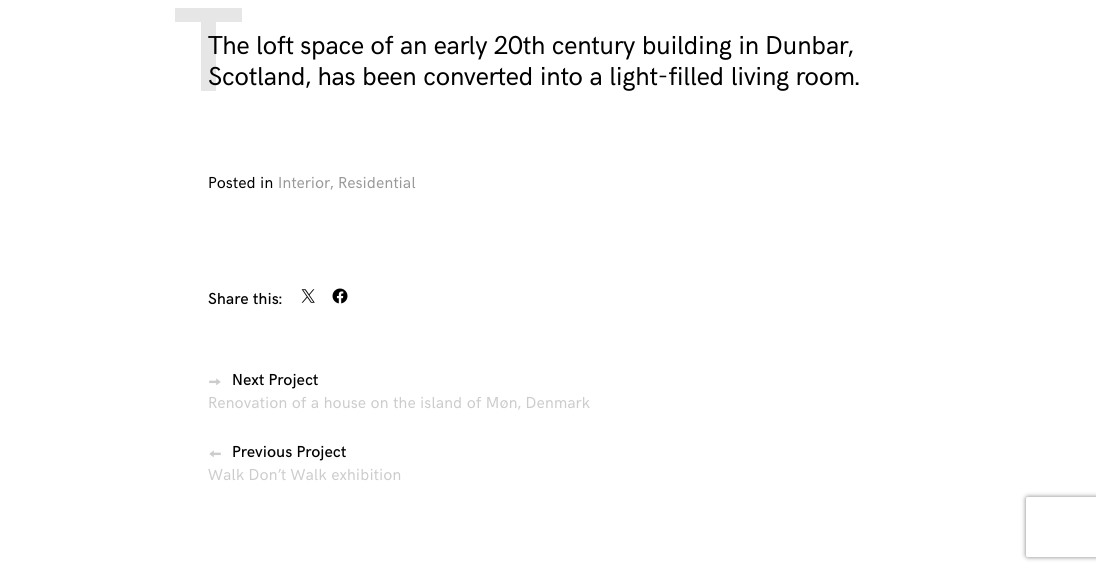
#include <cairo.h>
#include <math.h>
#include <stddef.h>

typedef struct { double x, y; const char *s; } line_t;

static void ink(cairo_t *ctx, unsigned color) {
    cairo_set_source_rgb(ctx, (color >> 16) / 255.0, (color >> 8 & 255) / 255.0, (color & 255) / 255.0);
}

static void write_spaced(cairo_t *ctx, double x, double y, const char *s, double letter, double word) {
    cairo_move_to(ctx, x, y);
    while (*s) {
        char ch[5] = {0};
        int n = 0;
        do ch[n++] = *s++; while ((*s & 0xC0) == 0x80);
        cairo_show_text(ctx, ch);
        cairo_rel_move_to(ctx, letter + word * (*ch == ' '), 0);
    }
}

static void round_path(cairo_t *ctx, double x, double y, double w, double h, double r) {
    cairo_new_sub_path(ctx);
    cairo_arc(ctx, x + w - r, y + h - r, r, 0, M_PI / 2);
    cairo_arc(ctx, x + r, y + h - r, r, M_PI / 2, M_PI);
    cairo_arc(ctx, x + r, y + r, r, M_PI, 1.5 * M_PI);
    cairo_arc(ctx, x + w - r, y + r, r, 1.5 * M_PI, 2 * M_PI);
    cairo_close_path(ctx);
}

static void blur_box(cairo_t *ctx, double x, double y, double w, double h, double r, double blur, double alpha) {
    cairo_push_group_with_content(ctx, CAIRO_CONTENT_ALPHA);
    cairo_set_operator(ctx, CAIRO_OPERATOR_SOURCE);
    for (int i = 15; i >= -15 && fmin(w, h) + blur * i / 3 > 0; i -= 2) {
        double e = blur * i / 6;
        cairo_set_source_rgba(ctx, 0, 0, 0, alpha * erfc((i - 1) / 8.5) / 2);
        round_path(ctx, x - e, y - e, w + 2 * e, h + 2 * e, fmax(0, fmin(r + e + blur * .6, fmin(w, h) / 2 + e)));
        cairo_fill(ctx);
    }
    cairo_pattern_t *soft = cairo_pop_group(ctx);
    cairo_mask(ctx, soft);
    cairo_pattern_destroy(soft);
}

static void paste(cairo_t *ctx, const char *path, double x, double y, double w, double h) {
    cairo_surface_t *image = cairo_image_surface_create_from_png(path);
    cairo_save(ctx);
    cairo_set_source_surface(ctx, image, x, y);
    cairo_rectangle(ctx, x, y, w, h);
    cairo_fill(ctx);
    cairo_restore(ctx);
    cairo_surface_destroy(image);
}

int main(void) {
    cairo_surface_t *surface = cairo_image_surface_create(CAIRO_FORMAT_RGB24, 1096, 571);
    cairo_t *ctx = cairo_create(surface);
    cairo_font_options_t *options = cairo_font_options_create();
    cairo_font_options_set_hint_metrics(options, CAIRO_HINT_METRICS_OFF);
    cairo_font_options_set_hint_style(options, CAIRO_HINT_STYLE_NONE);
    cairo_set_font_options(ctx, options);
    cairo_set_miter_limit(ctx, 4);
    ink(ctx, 0xFFFFFF);
    cairo_paint(ctx);
    ink(ctx, 0xE6E6E6);
    cairo_new_path(ctx);
    cairo_move_to(ctx, 201, 91);
    cairo_line_to(ctx, 201, 22);
    cairo_line_to(ctx, 175, 22);
    cairo_line_to(ctx, 175, 8);
    cairo_line_to(ctx, 242, 8);
    cairo_line_to(ctx, 242, 22);
    cairo_line_to(ctx, 216, 22);
    cairo_line_to(ctx, 216, 91);
    cairo_close_path(ctx);
    cairo_fill(ctx);
    cairo_select_font_face(ctx, "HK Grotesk", CAIRO_FONT_SLANT_NORMAL, CAIRO_FONT_WEIGHT_NORMAL);
    cairo_set_font_size(ctx, 26);
    ink(ctx, 0x000000);
    {
        static const line_t items[] = {
            {208, 54, "T"},
            {222, 54, "he loft space of an early 20th century building in Dunbar,"},
            {208, 85, "Scotland, has been converted into a light-filled living room."},
        };
        for (size_t i = 0; i < sizeof items / sizeof *items; i++) {
            write_spaced(ctx, items[i].x, items[i].y, items[i].s, -0.52, 0);
        }
    }
    cairo_set_font_size(ctx, 16);
    cairo_move_to(ctx, 208, 188);
    cairo_show_text(ctx, "Posted in");
    ink(ctx, 0x999999);
    cairo_move_to(ctx, 278, 188);
    cairo_show_text(ctx, "Interior, Residential");
    cairo_select_font_face(ctx, "HK Grotesk Medium", CAIRO_FONT_SLANT_NORMAL, CAIRO_FONT_WEIGHT_NORMAL);
    ink(ctx, 0x000000);
    cairo_move_to(ctx, 208, 304);
    cairo_show_text(ctx, "Share this:");
    paste(ctx, "media/1.png", 301, 289, 14, 14);
    paste(ctx, "media/2.png", 332, 288, 16, 16);
    paste(ctx, "media/3.png", 209, 378, 12, 7);
    cairo_move_to(ctx, 232, 385);
    cairo_show_text(ctx, "Next Project");
    cairo_select_font_face(ctx, "HK Grotesk", CAIRO_FONT_SLANT_NORMAL, CAIRO_FONT_WEIGHT_NORMAL);
    ink(ctx, 0xCCCCCC);
    cairo_move_to(ctx, 208, 408);
    cairo_show_text(ctx, "Renovation of a house on the island of Møn, Denmark");
    paste(ctx, "media/4.png", 209, 450, 12, 7);
    cairo_select_font_face(ctx, "HK Grotesk Medium", CAIRO_FONT_SLANT_NORMAL, CAIRO_FONT_WEIGHT_NORMAL);
    ink(ctx, 0x000000);
    cairo_move_to(ctx, 232, 457);
    cairo_show_text(ctx, "Previous Project");
    cairo_select_font_face(ctx, "HK Grotesk", CAIRO_FONT_SLANT_NORMAL, CAIRO_FONT_WEIGHT_NORMAL);
    ink(ctx, 0xCCCCCC);
    cairo_move_to(ctx, 208, 480);
    cairo_show_text(ctx, "Walk Don’t Walk exhibition");
    cairo_save(ctx);
    cairo_set_fill_rule(ctx, CAIRO_FILL_RULE_EVEN_ODD);
    cairo_new_path(ctx);
    cairo_move_to(ctx, 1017, 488);
    cairo_line_to(ctx, 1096, 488);
    cairo_line_to(ctx, 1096, 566);
    cairo_line_to(ctx, 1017, 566);
    cairo_close_path(ctx);
    cairo_move_to(ctx, 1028, 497);
    cairo_line_to(ctx, 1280, 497);
    cairo_curve_to(ctx, 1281, 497, 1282, 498, 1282, 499);
    cairo_line_to(ctx, 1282, 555);
    cairo_curve_to(ctx, 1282, 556, 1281, 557, 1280, 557);
    cairo_line_to(ctx, 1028, 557);
    cairo_curve_to(ctx, 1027, 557, 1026, 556, 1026, 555);
    cairo_line_to(ctx, 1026, 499);
    cairo_curve_to(ctx, 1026, 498, 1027, 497, 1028, 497);
    cairo_close_path(ctx);
    cairo_clip(ctx);
    ink(ctx, 0x808080);
    blur_box(ctx, 1026, 497, 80, 60, 2, 2.5, 1);
    cairo_restore(ctx);
    cairo_surface_write_to_png(surface, "image.png");
    cairo_font_options_destroy(options);
    cairo_destroy(ctx);
    cairo_surface_destroy(surface);
    return 0;
}
